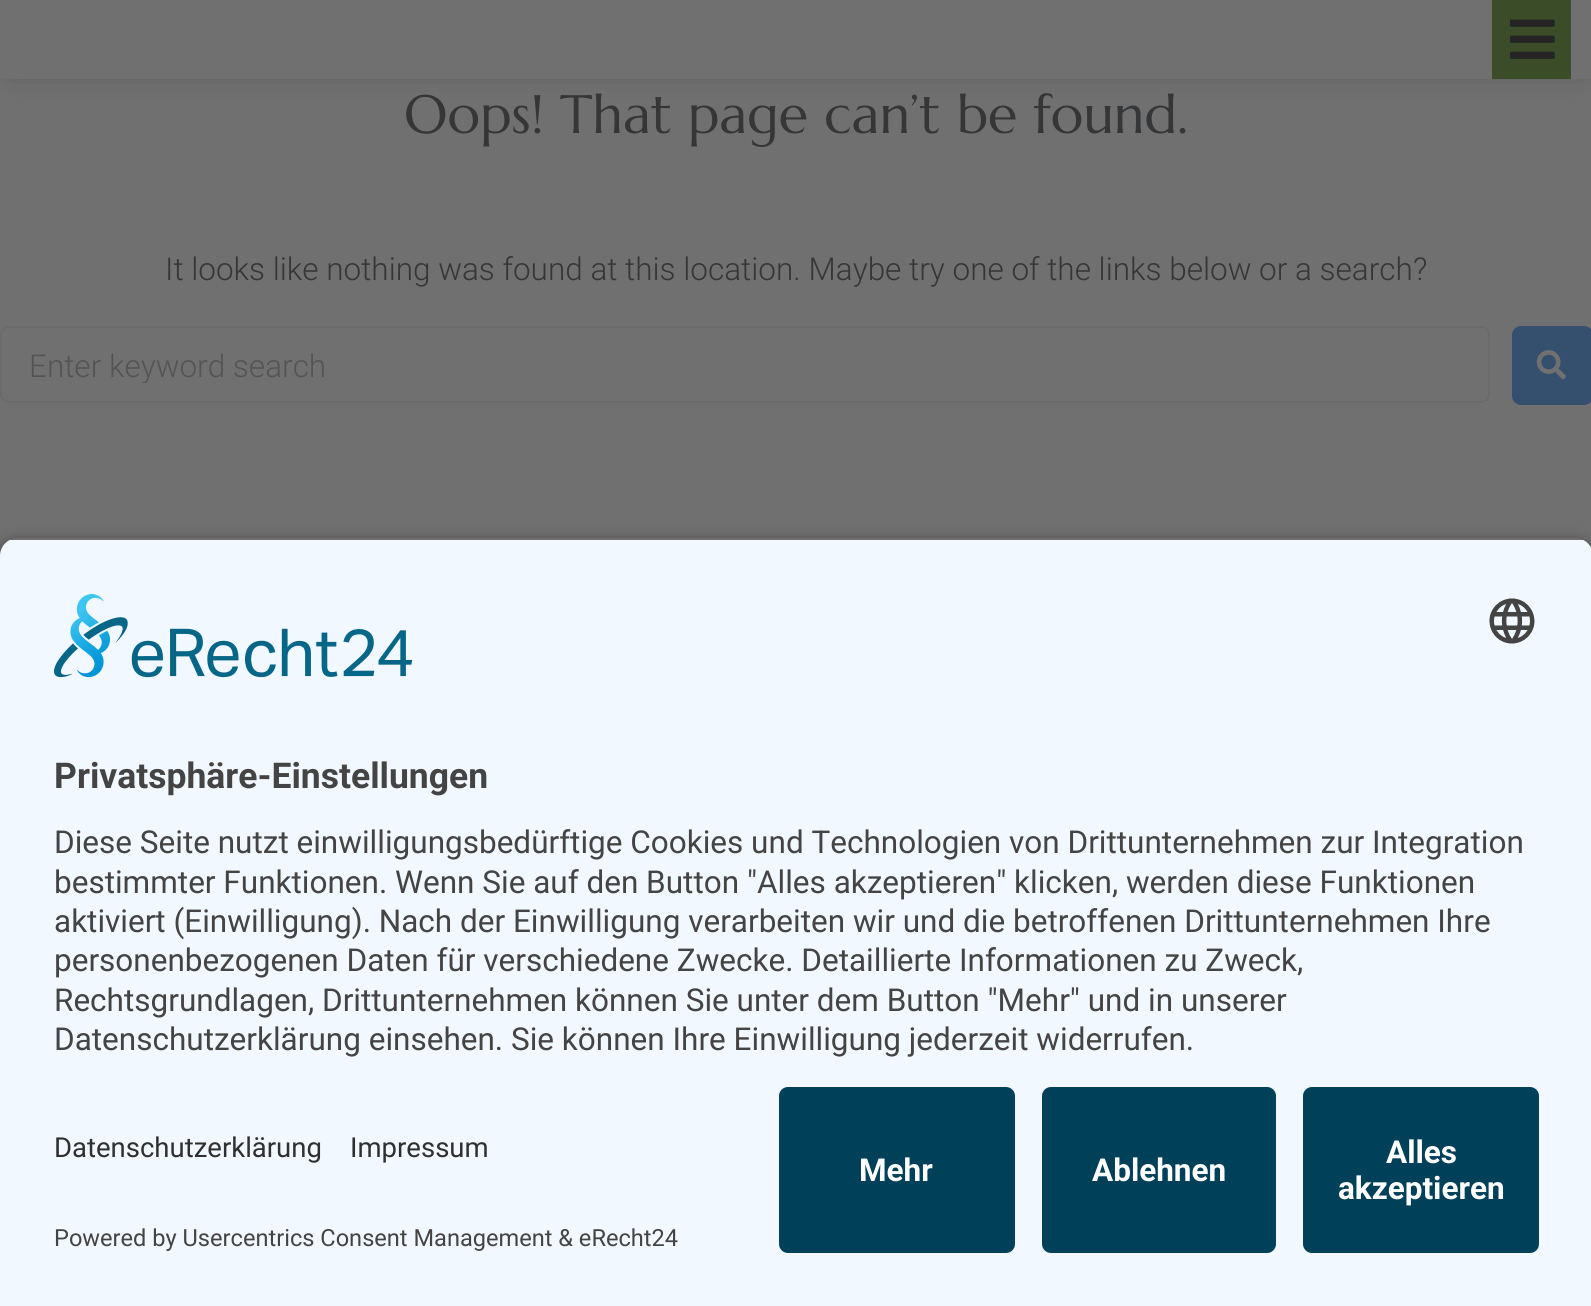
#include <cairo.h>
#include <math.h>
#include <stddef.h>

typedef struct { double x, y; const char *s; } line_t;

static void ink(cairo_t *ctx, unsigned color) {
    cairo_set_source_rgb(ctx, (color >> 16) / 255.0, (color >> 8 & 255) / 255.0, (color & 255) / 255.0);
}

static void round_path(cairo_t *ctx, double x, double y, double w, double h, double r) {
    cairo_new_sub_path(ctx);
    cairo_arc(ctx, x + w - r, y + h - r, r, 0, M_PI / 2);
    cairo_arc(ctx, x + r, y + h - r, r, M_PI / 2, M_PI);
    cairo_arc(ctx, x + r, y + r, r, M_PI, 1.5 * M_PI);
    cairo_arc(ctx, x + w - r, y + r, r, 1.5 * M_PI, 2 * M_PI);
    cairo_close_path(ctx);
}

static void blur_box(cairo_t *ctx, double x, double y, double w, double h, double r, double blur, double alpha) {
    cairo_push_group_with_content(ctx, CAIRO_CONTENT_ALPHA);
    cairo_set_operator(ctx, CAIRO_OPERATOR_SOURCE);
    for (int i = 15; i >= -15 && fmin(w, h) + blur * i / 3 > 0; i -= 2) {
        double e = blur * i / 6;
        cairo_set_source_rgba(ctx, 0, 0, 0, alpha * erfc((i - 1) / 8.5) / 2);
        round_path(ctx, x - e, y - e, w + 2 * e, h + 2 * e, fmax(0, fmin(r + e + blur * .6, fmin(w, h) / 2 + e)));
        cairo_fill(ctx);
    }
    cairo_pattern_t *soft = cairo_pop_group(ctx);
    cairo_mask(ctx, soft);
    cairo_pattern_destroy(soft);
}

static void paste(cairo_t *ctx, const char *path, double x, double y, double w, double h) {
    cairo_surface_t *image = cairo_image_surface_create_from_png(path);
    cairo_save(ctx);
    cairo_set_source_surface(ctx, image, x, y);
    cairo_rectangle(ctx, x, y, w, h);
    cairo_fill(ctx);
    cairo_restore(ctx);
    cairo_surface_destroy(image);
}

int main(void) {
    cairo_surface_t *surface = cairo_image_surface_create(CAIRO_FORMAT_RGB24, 1591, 1306);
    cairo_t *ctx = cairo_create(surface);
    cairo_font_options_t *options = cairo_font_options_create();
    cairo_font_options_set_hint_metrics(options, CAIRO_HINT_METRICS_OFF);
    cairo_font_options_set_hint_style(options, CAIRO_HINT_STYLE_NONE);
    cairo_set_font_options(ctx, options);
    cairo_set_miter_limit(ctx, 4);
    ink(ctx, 0x707070);
    cairo_paint(ctx);
    ink(ctx, 0x242424);
    blur_box(ctx, 11, 11, 1571, 57, 0, 13.5, 0.5);
    ink(ctx, 0x707070);
    cairo_rectangle(ctx, 0, 0, 1591, 79);
    cairo_fill(ctx);
    ink(ctx, 0x3B4C29);
    cairo_rectangle(ctx, 1492, 0, 79, 79);
    cairo_fill(ctx);
    paste(ctx, "media/1.png", 1510, 19, 45, 40);
    cairo_select_font_face(ctx, "Marcellus", CAIRO_FONT_SLANT_NORMAL, CAIRO_FONT_WEIGHT_NORMAL);
    cairo_set_font_size(ctx, 54);
    ink(ctx, 0x353638);
    cairo_move_to(ctx, 404, 133);
    cairo_show_text(ctx, "Oops! That page can’t be found.");
    cairo_select_font_face(ctx, "Roboto Light", CAIRO_FONT_SLANT_NORMAL, CAIRO_FONT_WEIGHT_NORMAL);
    cairo_set_font_size(ctx, 31.5);
    cairo_move_to(ctx, 165, 280);
    cairo_show_text(ctx, "It looks like nothing was found at this location. Maybe try one of the links below or a search?");
    round_path(ctx, 1, 327, 1488, 75, 8);
    ink(ctx, 0x6A6B6B);
    cairo_stroke(ctx);
    cairo_save(ctx);
    cairo_rectangle(ctx, 29, 347, 1422, 36);
    cairo_clip(ctx);
    ink(ctx, 0x545455);
    cairo_move_to(ctx, 29, 377);
    cairo_show_text(ctx, "Enter keyword search");
    cairo_restore(ctx);
    ink(ctx, 0x354F6F);
    round_path(ctx, 1512, 326, 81, 79, 9);
    cairo_fill(ctx);
    paste(ctx, "media/2.png", 1536, 350, 30, 30);
    cairo_save(ctx);
    cairo_set_fill_rule(ctx, CAIRO_FILL_RULE_EVEN_ODD);
    cairo_new_path(ctx);
    cairo_move_to(ctx, 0, 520);
    cairo_line_to(ctx, 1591, 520);
    cairo_line_to(ctx, 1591, 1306);
    cairo_line_to(ctx, 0, 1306);
    cairo_close_path(ctx);
    cairo_move_to(ctx, 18, 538);
    cairo_line_to(ctx, 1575, 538);
    cairo_curve_to(ctx, 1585, 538, 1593, 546, 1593, 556);
    cairo_line_to(ctx, 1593, 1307);
    cairo_line_to(ctx, 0, 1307);
    cairo_line_to(ctx, 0, 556);
    cairo_curve_to(ctx, 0, 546, 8, 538, 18, 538);
    cairo_close_path(ctx);
    cairo_clip(ctx);
    ink(ctx, 0x000000);
    blur_box(ctx, 0, 545, 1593, 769, 18, 8, 0.8);
    cairo_restore(ctx);
    cairo_save(ctx);
    cairo_new_path(ctx);
    cairo_move_to(ctx, 18, 538);
    cairo_line_to(ctx, 1575, 538);
    cairo_curve_to(ctx, 1585, 538, 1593, 546, 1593, 556);
    cairo_line_to(ctx, 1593, 1069);
    cairo_line_to(ctx, 0, 1069);
    cairo_line_to(ctx, 0, 556);
    cairo_curve_to(ctx, 0, 546, 8, 538, 18, 538);
    cairo_close_path(ctx);
    cairo_clip(ctx);
    ink(ctx, 0xF1F8FF);
    cairo_rectangle(ctx, 0, 540, 1591, 529);
    cairo_fill(ctx);
    cairo_restore(ctx);
    paste(ctx, "media/3.png", 54, 594, 359, 84);
    paste(ctx, "media/4.png", 1489, 598, 46, 46);
    cairo_select_font_face(ctx, "Roboto", CAIRO_FONT_SLANT_NORMAL, CAIRO_FONT_WEIGHT_BOLD);
    cairo_set_font_size(ctx, 35.5);
    ink(ctx, 0x444444);
    cairo_move_to(ctx, 54, 788);
    cairo_show_text(ctx, "Privatsphäre-Einstellungen");
    cairo_select_font_face(ctx, "Roboto", CAIRO_FONT_SLANT_NORMAL, CAIRO_FONT_WEIGHT_NORMAL);
    cairo_set_font_size(ctx, 31.5);
    {
        static const line_t items[] = {
            {54, 853, "Diese Seite nutzt einwilligungsbedürftige Cookies und Technologien von Drittunternehmen zur Integration"},
            {54, 893, "bestimmter Funktionen. Wenn Sie auf den Button \"Alles akzeptieren\" klicken, werden diese Funktionen"},
            {54, 932, "aktiviert (Einwilligung). Nach der Einwilligung verarbeiten wir und die betroffenen Drittunternehmen Ihre"},
            {54, 971, "personenbezogenen Daten für verschiedene Zwecke. Detaillierte Informationen zu Zweck,"},
            {54, 1011, "Rechtsgrundlagen, Drittunternehmen können Sie unter dem Button \"Mehr\" und in unserer"},
            {54, 1050, "Datenschutzerklärung einsehen. Sie können Ihre Einwilligung jederzeit widerrufen."},
        };
        for (size_t i = 0; i < sizeof items / sizeof *items; i++) {
            cairo_move_to(ctx, items[i].x, items[i].y);
            cairo_show_text(ctx, items[i].s);
        }
    }
    ink(ctx, 0xF1F8FF);
    cairo_rectangle(ctx, 0, 1069, 1591, 237);
    cairo_fill(ctx);
    cairo_set_font_size(ctx, 27.5);
    ink(ctx, 0x303030);
    cairo_move_to(ctx, 54, 1157);
    cairo_show_text(ctx, "Datenschutzerklärung");
    cairo_move_to(ctx, 350, 1157);
    cairo_show_text(ctx, "Impressum");
    cairo_set_font_size(ctx, 23.6);
    ink(ctx, 0x444444);
    cairo_move_to(ctx, 54, 1246);
    cairo_show_text(ctx, "Powered by Usercentrics Consent Management & eRecht24");
    ink(ctx, 0x004059);
    round_path(ctx, 779, 1087, 236, 166, 9);
    cairo_fill(ctx);
    cairo_select_font_face(ctx, "Roboto", CAIRO_FONT_SLANT_NORMAL, CAIRO_FONT_WEIGHT_BOLD);
    cairo_set_font_size(ctx, 31.5);
    ink(ctx, 0xFFFFFF);
    cairo_move_to(ctx, 859, 1181);
    cairo_show_text(ctx, "Mehr");
    ink(ctx, 0x004059);
    round_path(ctx, 1042, 1087, 234, 166, 9);
    cairo_fill(ctx);
    ink(ctx, 0xFFFFFF);
    cairo_move_to(ctx, 1092, 1181);
    cairo_show_text(ctx, "Ablehnen");
    ink(ctx, 0x004059);
    round_path(ctx, 1303, 1087, 236, 166, 9);
    cairo_fill(ctx);
    ink(ctx, 0xFFFFFF);
    cairo_move_to(ctx, 1386, 1163);
    cairo_show_text(ctx, "Alles");
    cairo_move_to(ctx, 1338, 1199);
    cairo_show_text(ctx, "akzeptieren");
    cairo_surface_write_to_png(surface, "image.png");
    cairo_font_options_destroy(options);
    cairo_destroy(ctx);
    cairo_surface_destroy(surface);
    return 0;
}
